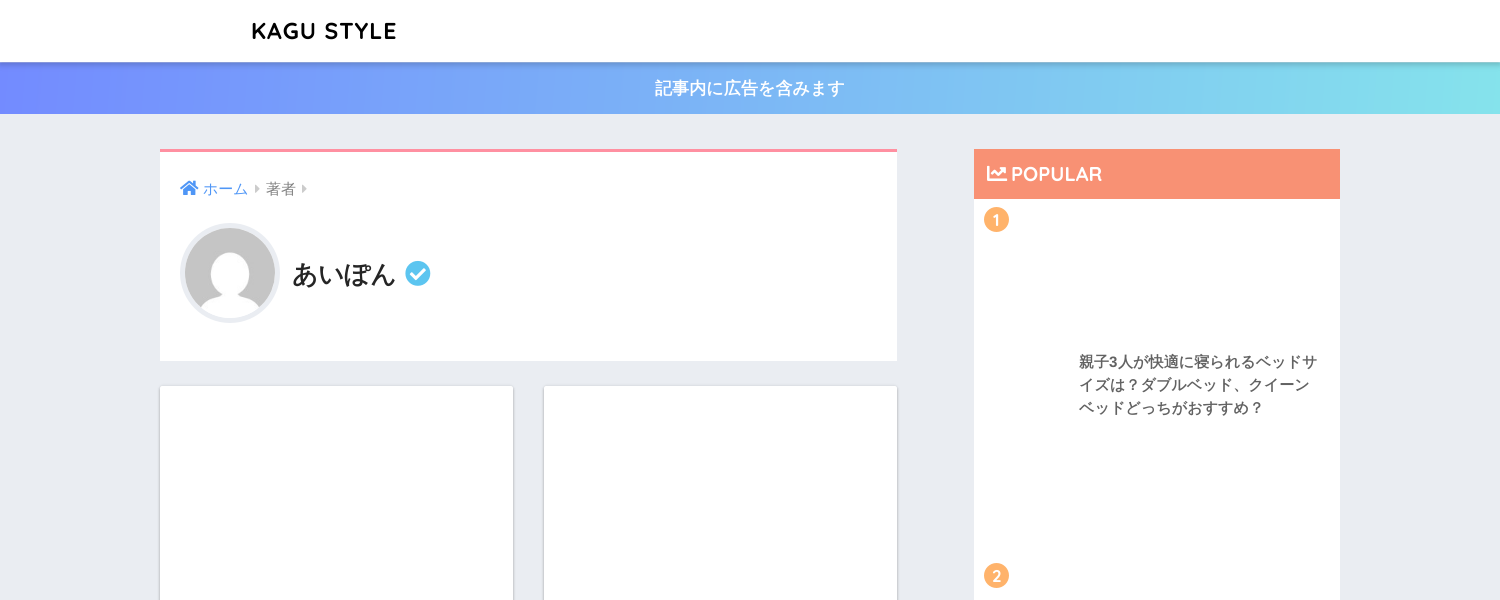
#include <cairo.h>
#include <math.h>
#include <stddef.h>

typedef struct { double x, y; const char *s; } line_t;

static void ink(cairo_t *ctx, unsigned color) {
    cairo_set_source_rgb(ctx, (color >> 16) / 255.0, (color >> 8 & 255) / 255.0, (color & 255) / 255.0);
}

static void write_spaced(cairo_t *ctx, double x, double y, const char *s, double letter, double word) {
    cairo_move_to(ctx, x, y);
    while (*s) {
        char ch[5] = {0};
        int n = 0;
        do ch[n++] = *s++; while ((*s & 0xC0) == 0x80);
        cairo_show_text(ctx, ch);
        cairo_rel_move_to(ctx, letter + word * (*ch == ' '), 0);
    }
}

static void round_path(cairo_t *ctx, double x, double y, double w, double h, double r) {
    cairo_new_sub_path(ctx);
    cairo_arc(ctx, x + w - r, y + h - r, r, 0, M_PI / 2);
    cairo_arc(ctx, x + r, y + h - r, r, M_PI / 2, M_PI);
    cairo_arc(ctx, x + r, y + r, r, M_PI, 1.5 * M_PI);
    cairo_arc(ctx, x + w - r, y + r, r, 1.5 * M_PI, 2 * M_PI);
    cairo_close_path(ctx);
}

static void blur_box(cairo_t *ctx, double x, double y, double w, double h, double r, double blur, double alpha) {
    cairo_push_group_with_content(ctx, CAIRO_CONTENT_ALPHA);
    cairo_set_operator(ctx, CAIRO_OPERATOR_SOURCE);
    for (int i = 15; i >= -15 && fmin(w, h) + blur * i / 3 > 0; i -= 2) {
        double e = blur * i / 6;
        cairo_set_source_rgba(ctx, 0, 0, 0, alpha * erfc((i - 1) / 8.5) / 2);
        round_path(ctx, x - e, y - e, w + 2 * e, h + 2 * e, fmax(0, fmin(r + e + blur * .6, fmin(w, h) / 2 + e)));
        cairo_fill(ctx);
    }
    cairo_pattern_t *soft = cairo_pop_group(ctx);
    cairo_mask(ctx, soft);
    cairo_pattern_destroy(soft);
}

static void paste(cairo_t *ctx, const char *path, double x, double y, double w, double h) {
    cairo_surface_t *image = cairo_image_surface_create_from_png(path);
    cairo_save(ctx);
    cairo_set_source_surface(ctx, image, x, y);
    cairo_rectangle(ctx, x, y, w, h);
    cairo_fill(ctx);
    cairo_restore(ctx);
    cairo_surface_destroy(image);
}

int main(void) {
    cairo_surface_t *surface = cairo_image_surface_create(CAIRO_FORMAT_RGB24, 1500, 600);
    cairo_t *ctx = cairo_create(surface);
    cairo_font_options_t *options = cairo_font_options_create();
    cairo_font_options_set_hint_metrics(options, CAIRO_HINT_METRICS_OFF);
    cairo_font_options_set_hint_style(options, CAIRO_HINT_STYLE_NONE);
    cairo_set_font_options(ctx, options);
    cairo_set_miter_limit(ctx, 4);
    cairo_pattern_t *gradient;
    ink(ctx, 0xEAEDF2);
    cairo_paint(ctx);
    gradient = cairo_pattern_create_linear(3.5, -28, 1497, 103);
    cairo_pattern_add_color_stop_rgba(gradient, 0, 0.616, 0.682, 1, 1);
    cairo_pattern_add_color_stop_rgba(gradient, 1, 0.667, 0.922, 0.949, 1);
    cairo_set_source(ctx, gradient);
    cairo_pattern_destroy(gradient);
    cairo_rectangle(ctx, 0, 62, 1500, 1);
    cairo_fill(ctx);
    gradient = cairo_pattern_create_linear(3.5, 23, 1497, 154);
    cairo_pattern_add_color_stop_rgba(gradient, 0, 0.451, 0.545, 1, 1);
    cairo_pattern_add_color_stop_rgba(gradient, 1, 0.522, 0.89, 0.925, 1);
    cairo_set_source(ctx, gradient);
    cairo_pattern_destroy(gradient);
    cairo_rectangle(ctx, 0, 63, 1500, 51);
    cairo_fill(ctx);
    ink(ctx, 0x000000);
    blur_box(ctx, 0, 3, 1500, 62, 0, 3, 0.18);
    ink(ctx, 0xFFFFFF);
    cairo_rectangle(ctx, 0, 0, 1500, 62);
    cairo_fill(ctx);
    cairo_select_font_face(ctx, "Quicksand", CAIRO_FONT_SLANT_NORMAL, CAIRO_FONT_WEIGHT_BOLD);
    cairo_set_font_size(ctx, 23);
    ink(ctx, 0x000000);
    write_spaced(ctx, 251, 39, "KAGU STYLE", 1, 0);
    cairo_select_font_face(ctx, "WenQuanYi Zen Hei", CAIRO_FONT_SLANT_NORMAL, CAIRO_FONT_WEIGHT_BOLD);
    cairo_set_font_size(ctx, 17.1);
    ink(ctx, 0xFFFFFF);
    cairo_move_to(ctx, 655, 94);
    cairo_show_text(ctx, "記事内に広告を含みます");
    cairo_rectangle(ctx, 160, 152, 737, 209);
    cairo_fill(ctx);
    ink(ctx, 0xFF90A1);
    cairo_rectangle(ctx, 160, 149, 737, 3);
    cairo_fill(ctx);
    paste(ctx, "media/1.png", 180, 180, 19, 15);
    cairo_select_font_face(ctx, "WenQuanYi Zen Hei Medium", CAIRO_FONT_SLANT_NORMAL, CAIRO_FONT_WEIGHT_NORMAL);
    cairo_set_font_size(ctx, 15);
    ink(ctx, 0x4F96F6);
    cairo_move_to(ctx, 203, 194);
    cairo_show_text(ctx, "ホーム");
    paste(ctx, "media/2.png", 255, 184, 5, 9);
    ink(ctx, 0x808080);
    cairo_move_to(ctx, 266, 194);
    cairo_show_text(ctx, "著者");
    paste(ctx, "media/2.png", 302, 184, 5, 9);
    cairo_arc(ctx, 230, 273, 47.5, 0, 2 * M_PI);
    ink(ctx, 0xEAEDF2);
    cairo_set_line_width(ctx, 5);
    cairo_stroke(ctx);
    paste(ctx, "media/3.png", 185, 228, 90, 90);
    cairo_select_font_face(ctx, "WenQuanYi Zen Hei", CAIRO_FONT_SLANT_NORMAL, CAIRO_FONT_WEIGHT_BOLD);
    cairo_set_font_size(ctx, 25.5);
    ink(ctx, 0x252525);
    cairo_move_to(ctx, 292, 283);
    cairo_show_text(ctx, "あいぽん");
    paste(ctx, "media/4.png", 405, 260, 26, 26);
    ink(ctx, 0x000000);
    blur_box(ctx, 160, 388, 353, 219, 2, 1.5, 0.22);
    blur_box(ctx, 160, 386, 353, 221, 2, 1.5, 0.12);
    ink(ctx, 0xFFFFFF);
    round_path(ctx, 160, 386, 353, 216, 2);
    cairo_fill(ctx);
    ink(ctx, 0x000000);
    blur_box(ctx, 544, 388, 353, 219, 2, 1.5, 0.22);
    blur_box(ctx, 544, 386, 353, 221, 2, 1.5, 0.12);
    ink(ctx, 0xFFFFFF);
    round_path(ctx, 544, 386, 353, 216, 2);
    cairo_fill(ctx);
    cairo_rectangle(ctx, 974, 199, 366, 401);
    cairo_fill(ctx);
    ink(ctx, 0xF89174);
    cairo_rectangle(ctx, 974, 149, 366, 50);
    cairo_fill(ctx);
    paste(ctx, "media/5.png", 987, 165, 21, 16);
    cairo_select_font_face(ctx, "Quicksand", CAIRO_FONT_SLANT_NORMAL, CAIRO_FONT_WEIGHT_BOLD);
    cairo_set_font_size(ctx, 20);
    ink(ctx, 0xFFFFFF);
    cairo_move_to(ctx, 1011, 181);
    cairo_show_text(ctx, "POPULAR");
    ink(ctx, 0xFFB36B);
    cairo_new_path(ctx);
    cairo_arc(ctx, 996.5, 219.5, 12.5, 0, 2 * M_PI);
    cairo_fill(ctx);
    cairo_set_font_size(ctx, 17);
    ink(ctx, 0xFFFFFF);
    cairo_move_to(ctx, 993, 226);
    cairo_show_text(ctx, "1");
    cairo_select_font_face(ctx, "WenQuanYi Zen Hei", CAIRO_FONT_SLANT_NORMAL, CAIRO_FONT_WEIGHT_BOLD);
    cairo_set_font_size(ctx, 15.1);
    ink(ctx, 0x626262);
    cairo_move_to(ctx, 1079, 367);
    cairo_show_text(ctx, "親子");
    cairo_select_font_face(ctx, "Liberation Sans", CAIRO_FONT_SLANT_NORMAL, CAIRO_FONT_WEIGHT_BOLD);
    cairo_move_to(ctx, 1109, 367);
    cairo_show_text(ctx, "3");
    cairo_select_font_face(ctx, "WenQuanYi Zen Hei", CAIRO_FONT_SLANT_NORMAL, CAIRO_FONT_WEIGHT_BOLD);
    {
        static const line_t items[] = {
            {1118, 367, "人が快適に寝られるベッドサ"},
            {1079, 390, "イズは？ダブルベッド、クイーン"},
            {1079, 413, "ベッドどっちがおすすめ？"},
        };
        for (size_t i = 0; i < sizeof items / sizeof *items; i++) {
            cairo_move_to(ctx, items[i].x, items[i].y);
            cairo_show_text(ctx, items[i].s);
        }
    }
    ink(ctx, 0xFFB36B);
    cairo_new_path(ctx);
    cairo_arc(ctx, 996.5, 575.5, 12.5, 0, 2 * M_PI);
    cairo_fill(ctx);
    cairo_select_font_face(ctx, "Quicksand", CAIRO_FONT_SLANT_NORMAL, CAIRO_FONT_WEIGHT_BOLD);
    cairo_set_font_size(ctx, 17);
    ink(ctx, 0xFFFFFF);
    cairo_move_to(ctx, 992, 582);
    cairo_show_text(ctx, "2");
    cairo_surface_write_to_png(surface, "image.png");
    cairo_font_options_destroy(options);
    cairo_destroy(ctx);
    cairo_surface_destroy(surface);
    return 0;
}
